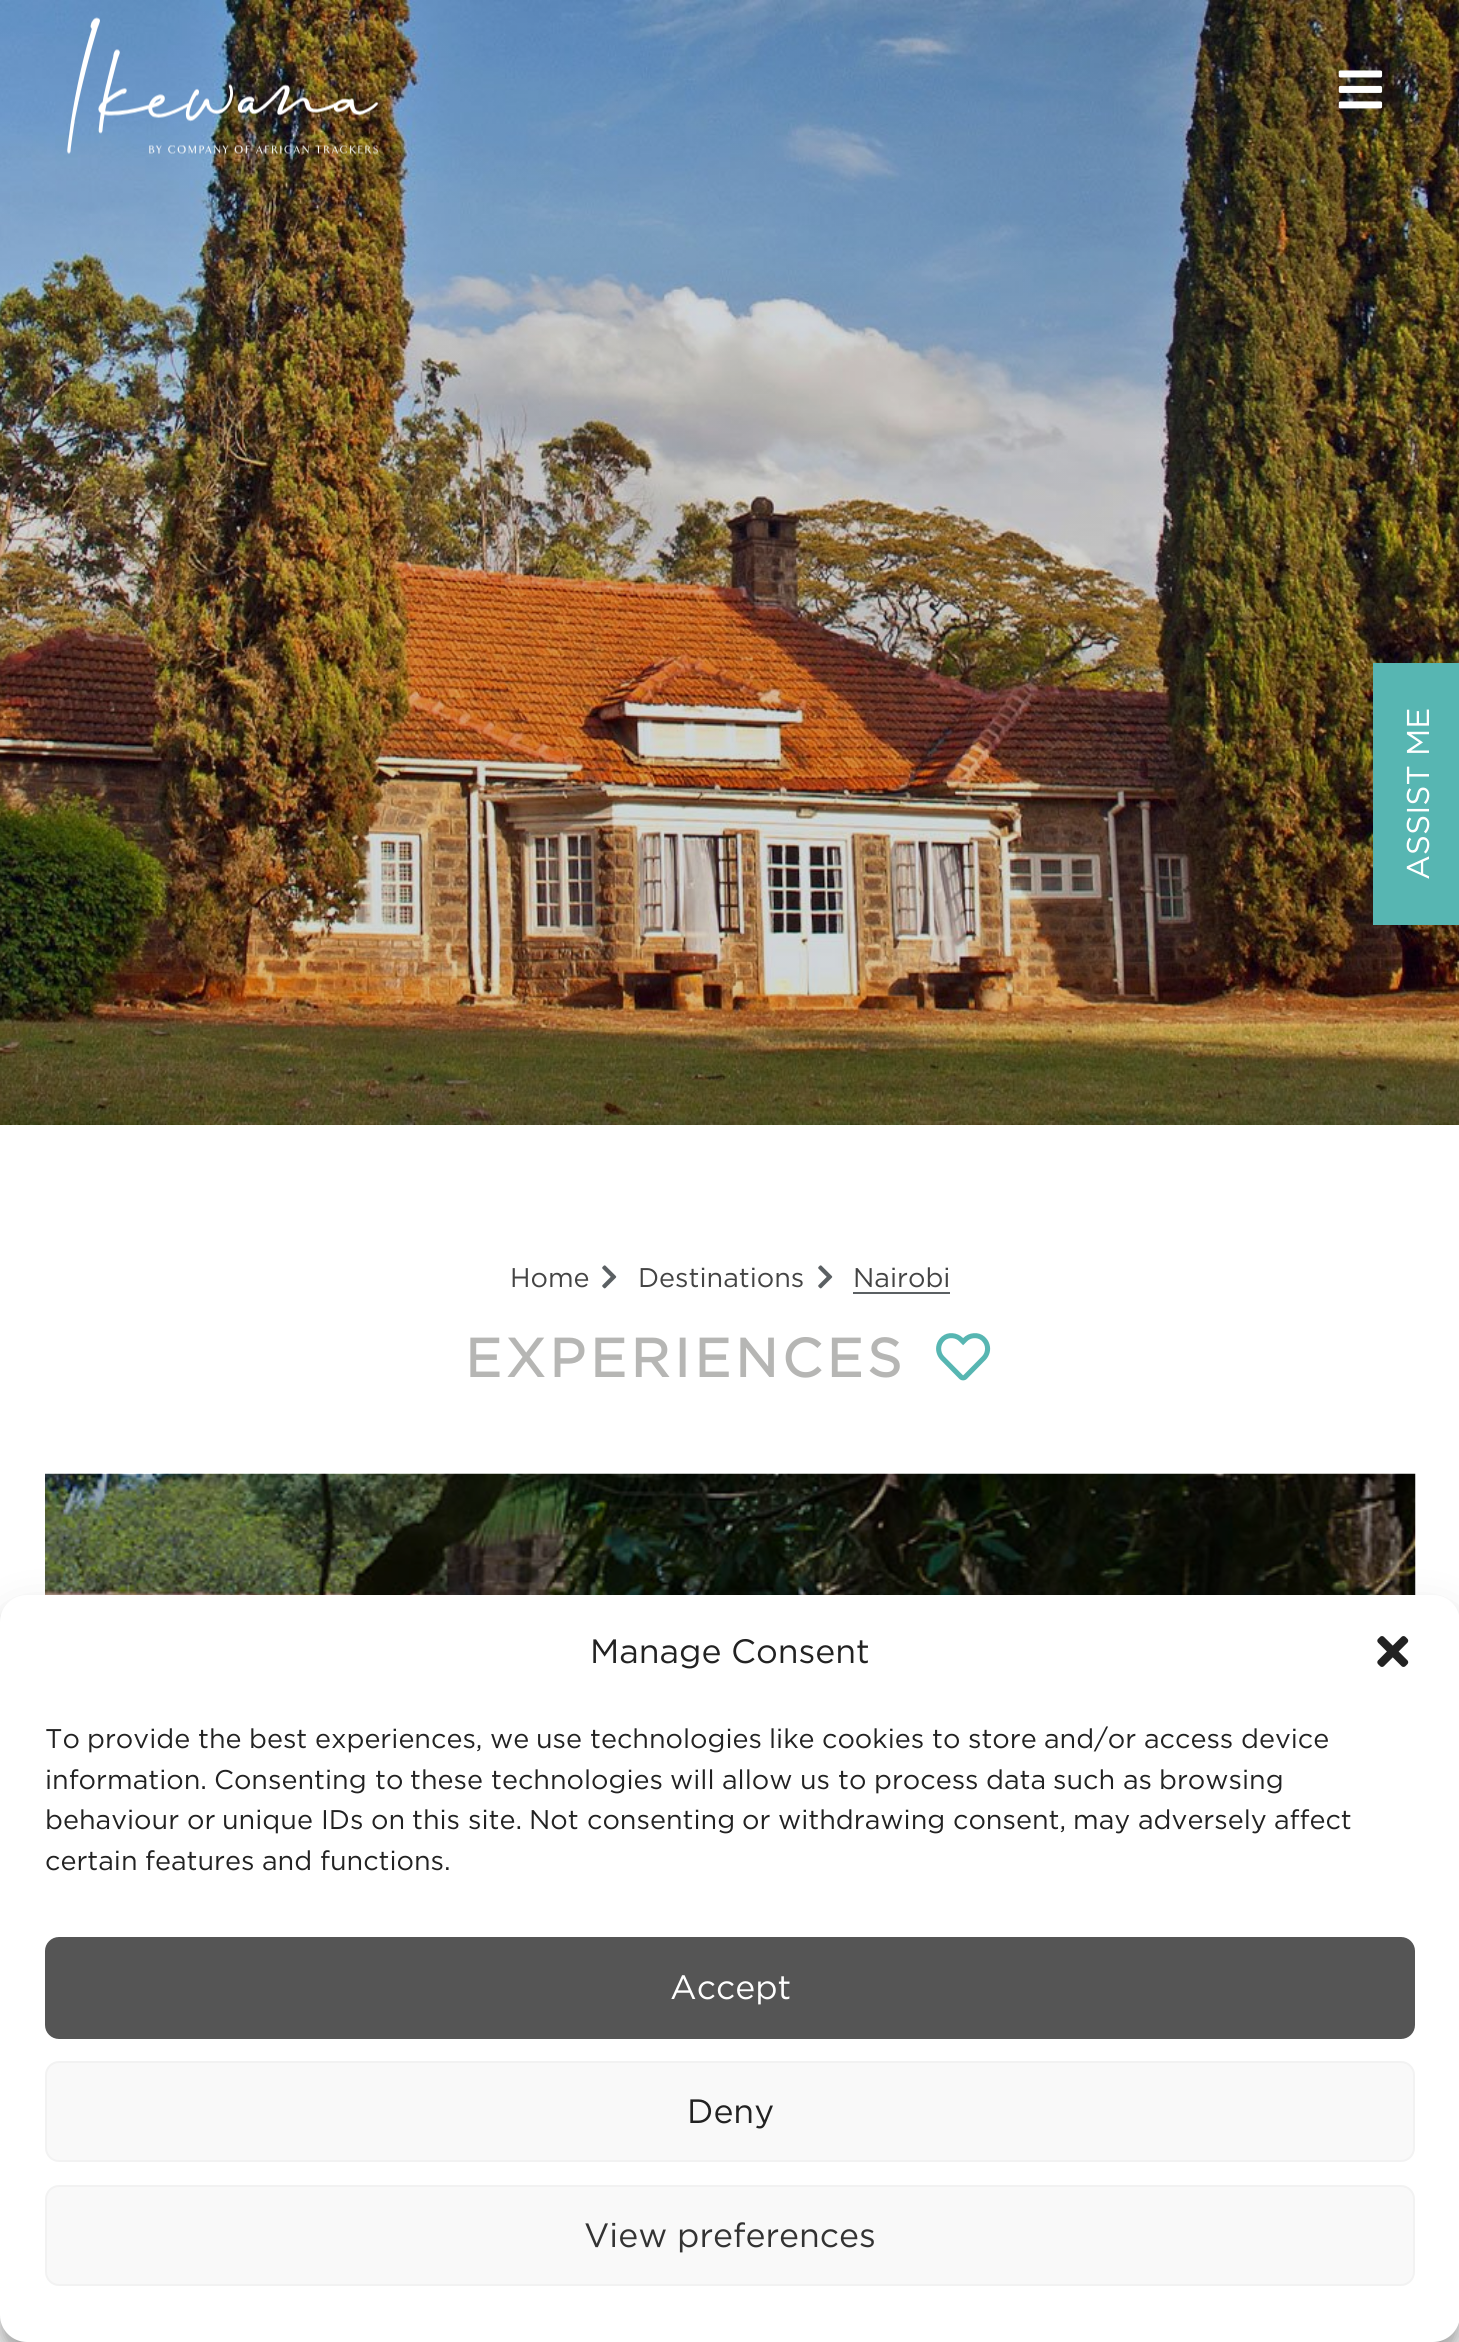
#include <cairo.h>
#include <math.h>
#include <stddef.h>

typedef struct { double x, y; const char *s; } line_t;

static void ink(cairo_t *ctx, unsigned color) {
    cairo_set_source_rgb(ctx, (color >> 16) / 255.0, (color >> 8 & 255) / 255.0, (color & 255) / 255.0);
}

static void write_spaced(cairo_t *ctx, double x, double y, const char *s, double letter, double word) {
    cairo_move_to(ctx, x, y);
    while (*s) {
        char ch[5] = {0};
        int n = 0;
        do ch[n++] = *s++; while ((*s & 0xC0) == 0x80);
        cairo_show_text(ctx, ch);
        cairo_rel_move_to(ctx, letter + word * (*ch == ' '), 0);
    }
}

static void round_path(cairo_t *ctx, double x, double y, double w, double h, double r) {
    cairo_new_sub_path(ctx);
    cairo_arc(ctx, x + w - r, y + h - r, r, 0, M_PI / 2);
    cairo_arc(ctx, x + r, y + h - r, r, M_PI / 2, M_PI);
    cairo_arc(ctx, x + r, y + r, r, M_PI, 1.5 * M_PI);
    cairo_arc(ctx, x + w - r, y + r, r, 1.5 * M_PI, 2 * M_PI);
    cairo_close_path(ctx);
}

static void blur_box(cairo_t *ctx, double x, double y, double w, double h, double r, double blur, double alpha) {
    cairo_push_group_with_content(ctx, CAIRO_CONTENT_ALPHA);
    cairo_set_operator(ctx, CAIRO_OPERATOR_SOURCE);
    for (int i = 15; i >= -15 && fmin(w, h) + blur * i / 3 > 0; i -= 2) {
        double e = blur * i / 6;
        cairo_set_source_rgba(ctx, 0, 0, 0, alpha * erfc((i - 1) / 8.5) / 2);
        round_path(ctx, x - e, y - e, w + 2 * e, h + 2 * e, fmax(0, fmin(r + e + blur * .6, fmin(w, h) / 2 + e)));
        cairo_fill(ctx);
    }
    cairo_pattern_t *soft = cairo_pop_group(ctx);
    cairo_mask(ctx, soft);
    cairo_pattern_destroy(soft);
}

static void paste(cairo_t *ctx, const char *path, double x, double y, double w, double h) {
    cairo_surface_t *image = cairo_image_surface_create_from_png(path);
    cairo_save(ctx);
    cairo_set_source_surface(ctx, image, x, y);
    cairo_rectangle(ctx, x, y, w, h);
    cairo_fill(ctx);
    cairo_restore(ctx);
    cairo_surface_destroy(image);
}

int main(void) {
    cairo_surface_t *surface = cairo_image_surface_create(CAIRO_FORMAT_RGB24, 1459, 2342);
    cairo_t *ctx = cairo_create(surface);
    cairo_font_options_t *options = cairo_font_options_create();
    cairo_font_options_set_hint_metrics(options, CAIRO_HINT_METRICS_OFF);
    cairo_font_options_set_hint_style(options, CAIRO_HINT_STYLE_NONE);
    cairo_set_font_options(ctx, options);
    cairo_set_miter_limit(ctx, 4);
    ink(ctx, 0xFFFFFF);
    cairo_paint(ctx);
    paste(ctx, "media/3.png", 0, 0, 1459, 1125);
    paste(ctx, "media/1.png", 67, 17, 311, 137);
    paste(ctx, "media/2.png", 1338, 70, 45, 39);
    ink(ctx, 0x57B6B2);
    cairo_rectangle(ctx, 1373, 663, 86, 262);
    cairo_fill(ctx);
    cairo_select_font_face(ctx, "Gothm", CAIRO_FONT_SLANT_NORMAL, CAIRO_FONT_WEIGHT_NORMAL);
    cairo_set_font_size(ctx, 31.5);
    ink(ctx, 0xFFFFFF);
    cairo_save(ctx);
    cairo_translate(ctx, 1429, 756);
    cairo_rotate(ctx, -90 * M_PI / 180);
    cairo_move_to(ctx, 0, 0);
    cairo_show_text(ctx, "ME");
    cairo_restore(ctx);
    cairo_save(ctx);
    cairo_translate(ctx, 1429, 880);
    cairo_rotate(ctx, -90 * M_PI / 180);
    cairo_move_to(ctx, 0, 0);
    cairo_show_text(ctx, "ASSIST");
    cairo_restore(ctx);
    cairo_set_font_size(ctx, 27);
    ink(ctx, 0x444444);
    cairo_move_to(ctx, 510, 1287);
    cairo_show_text(ctx, "Home");
    paste(ctx, "media/4.png", 602, 1265, 15, 24);
    cairo_move_to(ctx, 638, 1287);
    cairo_show_text(ctx, "Destinations");
    paste(ctx, "media/4.png", 818, 1265, 15, 24);
    ink(ctx, 0x5B6063);
    cairo_rectangle(ctx, 853, 1292, 97, 2);
    cairo_fill(ctx);
    ink(ctx, 0x444444);
    cairo_move_to(ctx, 853, 1287);
    cairo_show_text(ctx, "Nairobi");
    cairo_select_font_face(ctx, "Gothm", CAIRO_FONT_SLANT_NORMAL, CAIRO_FONT_WEIGHT_BOLD);
    cairo_set_font_size(ctx, 54);
    ink(ctx, 0xB6B6B4);
    write_spaced(ctx, 465, 1377, "EXPERIENCES", 4.5, 0);
    paste(ctx, "media/5.png", 936, 1333, 55, 48);
    paste(ctx, "media/6.png", 45, 1473, 1371, 122);
    ink(ctx, 0x000000);
    blur_box(ctx, 0, 1609, 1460, 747, 27, 7, 0.23);
    blur_box(ctx, 0, 1618, 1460, 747, 27, 22.5, 0.19);
    ink(ctx, 0xFFFFFF);
    round_path(ctx, 0, 1595, 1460, 747, 27);
    cairo_fill(ctx);
    cairo_select_font_face(ctx, "Gothm", CAIRO_FONT_SLANT_NORMAL, CAIRO_FONT_WEIGHT_NORMAL);
    cairo_set_font_size(ctx, 33.75);
    ink(ctx, 0x222222);
    cairo_move_to(ctx, 590, 1663);
    cairo_show_text(ctx, "Manage");
    cairo_move_to(ctx, 731, 1663);
    cairo_show_text(ctx, "Consent");
    paste(ctx, "media/7.png", 1377, 1636, 32, 31);
    cairo_set_font_size(ctx, 27);
    {
        static const line_t items[] = {
            {45, 1748, "To"},
            {87, 1748, "provide"},
            {198, 1748, "the"},
            {249, 1748, "best"},
            {315, 1748, "experiences,"},
            {490, 1748, "we"},
            {536, 1748, "use"},
            {590, 1748, "technologies"},
            {769, 1748, "like"},
            {822, 1748, "cookies"},
            {932, 1748, "to"},
            {968, 1748, "store"},
            {1044, 1748, "and/or"},
            {1144, 1748, "access"},
            {1241, 1748, "device"},
            {45, 1789, "information."},
            {214, 1789, "Consenting"},
            {375, 1789, "to"},
            {410, 1789, "these"},
            {491, 1789, "technologies"},
            {670, 1789, "will"},
            {722, 1789, "allow"},
            {800, 1789, "us"},
            {838, 1789, "to"},
            {874, 1789, "process"},
            {986, 1789, "data"},
            {1053, 1789, "such"},
            {1123, 1789, "as"},
            {1159, 1789, "browsing"},
            {45, 1829, "behaviour"},
            {187, 1829, "or"},
            {222, 1829, "unique"},
            {321, 1829, "IDs"},
            {371, 1829, "on"},
            {412, 1829, "this"},
            {468, 1829, "site."},
            {529, 1829, "Not"},
            {587, 1829, "consenting"},
            {742, 1829, "or"},
            {778, 1829, "withdrawing"},
            {953, 1829, "consent,"},
            {1073, 1829, "may"},
            {1138, 1829, "adversely"},
            {1274, 1829, "affect"},
            {45, 1870, "certain"},
            {145, 1870, "features"},
            {262, 1870, "and"},
            {320, 1870, "functions."},
        };
        for (size_t i = 0; i < sizeof items / sizeof *items; i++) {
            cairo_move_to(ctx, items[i].x, items[i].y);
            cairo_show_text(ctx, items[i].s);
        }
    }
    ink(ctx, 0x555555);
    round_path(ctx, 46, 1938, 1368, 100, 13);
    cairo_fill_preserve(ctx);
    cairo_stroke(ctx);
    cairo_set_font_size(ctx, 33.75);
    ink(ctx, 0xFFFFFF);
    cairo_move_to(ctx, 670, 1999);
    cairo_show_text(ctx, "Accept");
    ink(ctx, 0xF9F9F9);
    round_path(ctx, 46, 2062, 1368, 99, 13);
    cairo_fill_preserve(ctx);
    ink(ctx, 0xF2F2F2);
    cairo_stroke(ctx);
    ink(ctx, 0x222222);
    cairo_move_to(ctx, 687, 2123);
    cairo_show_text(ctx, "Deny");
    ink(ctx, 0xF9F9F9);
    round_path(ctx, 46, 2186, 1368, 99, 13);
    cairo_fill_preserve(ctx);
    ink(ctx, 0xF2F2F2);
    cairo_stroke(ctx);
    ink(ctx, 0x333333);
    cairo_move_to(ctx, 584, 2247);
    cairo_show_text(ctx, "View");
    cairo_move_to(ctx, 677, 2247);
    cairo_show_text(ctx, "preferences");
    cairo_surface_write_to_png(surface, "image.png");
    cairo_font_options_destroy(options);
    cairo_destroy(ctx);
    cairo_surface_destroy(surface);
    return 0;
}
